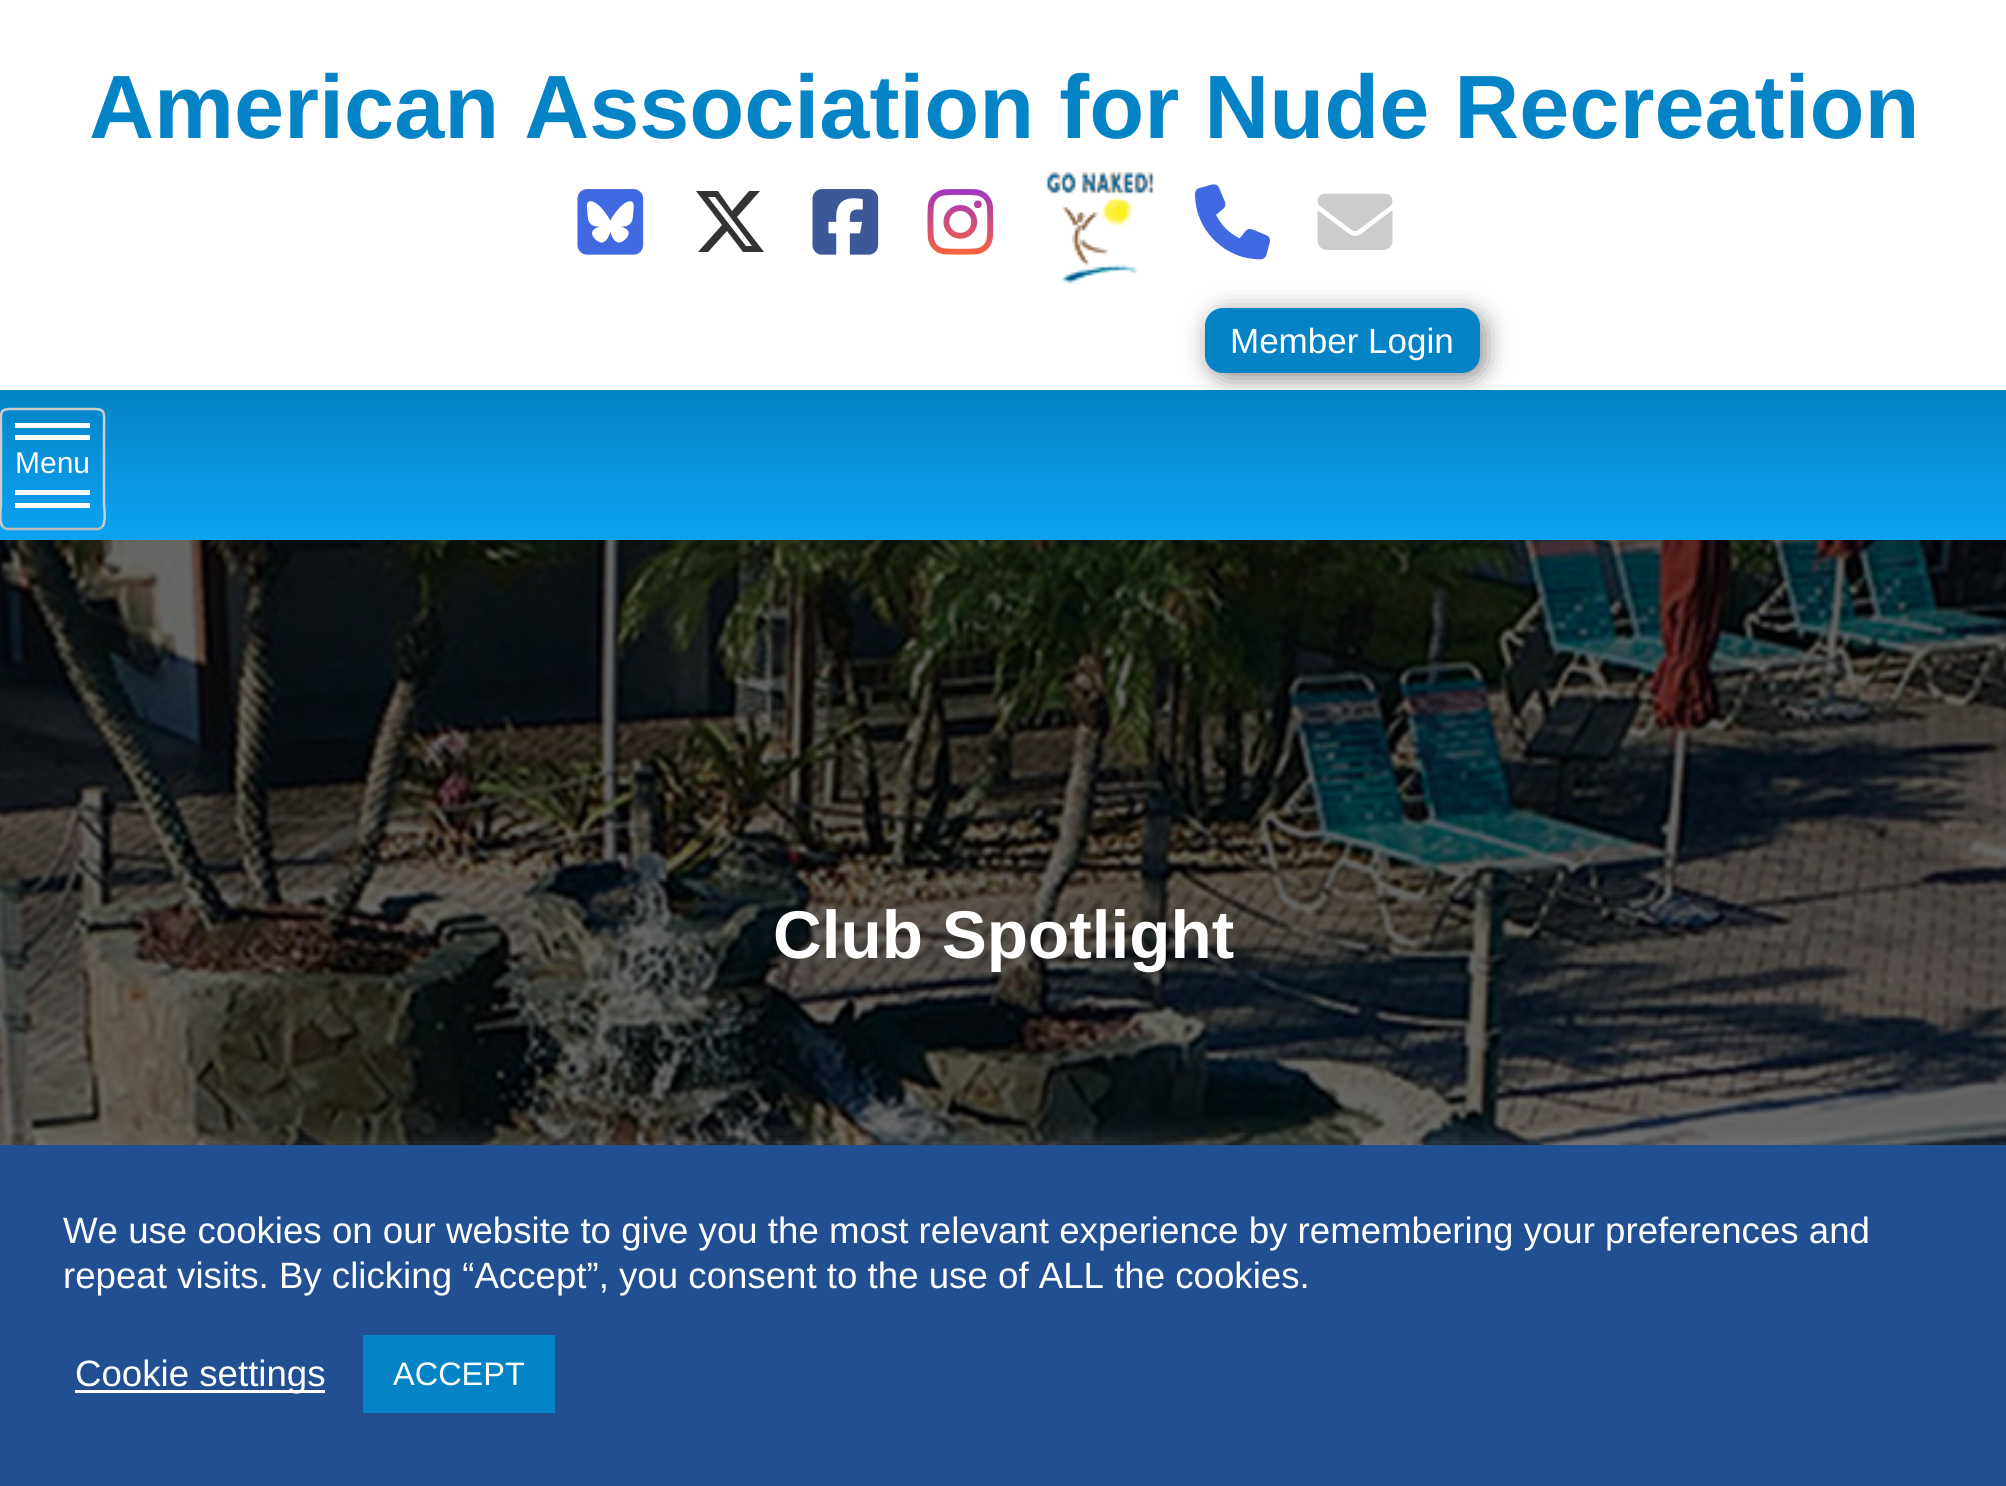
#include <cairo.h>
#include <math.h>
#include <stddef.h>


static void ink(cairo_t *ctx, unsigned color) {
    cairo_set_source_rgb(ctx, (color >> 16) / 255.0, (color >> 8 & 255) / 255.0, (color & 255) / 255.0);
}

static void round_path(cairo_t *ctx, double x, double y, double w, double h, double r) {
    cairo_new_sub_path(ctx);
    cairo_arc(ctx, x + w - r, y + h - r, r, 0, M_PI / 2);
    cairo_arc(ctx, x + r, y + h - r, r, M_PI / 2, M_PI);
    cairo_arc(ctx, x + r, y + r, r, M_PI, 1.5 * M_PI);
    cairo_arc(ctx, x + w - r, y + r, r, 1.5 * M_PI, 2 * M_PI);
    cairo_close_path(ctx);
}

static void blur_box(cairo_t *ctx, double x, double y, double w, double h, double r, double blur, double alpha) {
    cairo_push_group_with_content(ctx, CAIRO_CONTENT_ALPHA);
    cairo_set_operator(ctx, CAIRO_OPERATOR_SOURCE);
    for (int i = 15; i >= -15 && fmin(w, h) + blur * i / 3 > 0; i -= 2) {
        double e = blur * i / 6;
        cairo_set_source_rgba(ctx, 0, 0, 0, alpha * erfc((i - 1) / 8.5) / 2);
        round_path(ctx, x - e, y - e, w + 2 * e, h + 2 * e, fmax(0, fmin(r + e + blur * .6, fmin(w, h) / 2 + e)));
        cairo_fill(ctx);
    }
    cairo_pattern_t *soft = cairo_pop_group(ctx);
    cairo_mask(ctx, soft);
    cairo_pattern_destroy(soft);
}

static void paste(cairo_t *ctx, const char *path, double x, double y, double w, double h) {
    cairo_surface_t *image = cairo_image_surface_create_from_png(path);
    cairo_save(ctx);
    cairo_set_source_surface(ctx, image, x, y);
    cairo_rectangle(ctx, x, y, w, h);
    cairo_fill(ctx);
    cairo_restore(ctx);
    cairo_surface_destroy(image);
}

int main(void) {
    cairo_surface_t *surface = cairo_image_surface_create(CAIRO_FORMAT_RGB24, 2006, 1486);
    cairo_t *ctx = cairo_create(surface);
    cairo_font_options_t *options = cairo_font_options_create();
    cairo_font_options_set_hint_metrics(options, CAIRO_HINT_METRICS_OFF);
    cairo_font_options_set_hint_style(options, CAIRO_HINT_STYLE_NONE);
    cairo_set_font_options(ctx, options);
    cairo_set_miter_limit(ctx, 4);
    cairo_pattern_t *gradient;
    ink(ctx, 0xFFFFFF);
    cairo_paint(ctx);
    cairo_select_font_face(ctx, "Liberation Sans", CAIRO_FONT_SLANT_NORMAL, CAIRO_FONT_WEIGHT_BOLD);
    cairo_set_font_size(ctx, 90);
    ink(ctx, 0x0483C6);
    cairo_move_to(ctx, 89, 138);
    cairo_show_text(ctx, "American Association for Nude Recreation");
    paste(ctx, "media/1.png", 577, 189, 67, 66);
    ink(ctx, 0x333333);
    cairo_new_path(ctx);
    cairo_move_to(ctx, 749, 191);
    cairo_line_to(ctx, 760, 191);
    cairo_line_to(ctx, 749, 191);
    cairo_line_to(ctx, 760, 191);
    cairo_line_to(ctx, 737, 217);
    cairo_line_to(ctx, 764, 252);
    cairo_line_to(ctx, 743, 252);
    cairo_line_to(ctx, 727, 231);
    cairo_line_to(ctx, 708, 252);
    cairo_line_to(ctx, 698, 252);
    cairo_line_to(ctx, 722, 225);
    cairo_line_to(ctx, 696, 191);
    cairo_line_to(ctx, 718, 191);
    cairo_line_to(ctx, 732, 211);
    cairo_close_path(ctx);
    cairo_move_to(ctx, 746, 246);
    cairo_line_to(ctx, 752, 246);
    cairo_line_to(ctx, 746, 246);
    cairo_line_to(ctx, 752, 246);
    cairo_line_to(ctx, 715, 197);
    cairo_line_to(ctx, 708, 197);
    cairo_close_path(ctx);
    cairo_fill(ctx);
    paste(ctx, "media/2.png", 812, 189, 67, 66);
    paste(ctx, "media/3.png", 927, 189, 67, 66);
    paste(ctx, "media/4.png", 1046, 171, 108, 113);
    paste(ctx, "media/5.png", 1195, 184, 75, 76);
    paste(ctx, "media/6.png", 1317, 193, 76, 57);
    ink(ctx, 0x888888);
    blur_box(ctx, 1210, 313, 275, 65, 18, 12.5, 1);
    ink(ctx, 0x0483C6);
    round_path(ctx, 1205, 308, 275, 65, 18);
    cairo_fill(ctx);
    cairo_select_font_face(ctx, "Liberation Sans", CAIRO_FONT_SLANT_NORMAL, CAIRO_FONT_WEIGHT_NORMAL);
    cairo_set_font_size(ctx, 35);
    ink(ctx, 0xFFFFFF);
    cairo_move_to(ctx, 1230, 353);
    cairo_show_text(ctx, "Member Login");
    gradient = cairo_pattern_create_linear(1004, 390, 1004, 540);
    cairo_pattern_add_color_stop_rgba(gradient, 0, 0.016, 0.514, 0.776, 1);
    cairo_pattern_add_color_stop_rgba(gradient, 1, 0.047, 0.639, 0.949, 1);
    cairo_set_source(ctx, gradient);
    cairo_pattern_destroy(gradient);
    cairo_rectangle(ctx, 0, 390, 2006, 150);
    cairo_fill(ctx);
    cairo_new_path(ctx);
    cairo_move_to(ctx, 102, 527);
    cairo_curve_to(ctx, 100.5, 528, 99, 529, 97.5, 529);
    cairo_line_to(ctx, 7.5, 529);
    cairo_curve_to(ctx, 6, 529, 4.5, 528, 3, 527);
    ink(ctx, 0xBBBBBB);
    cairo_set_line_width(ctx, 2.5);
    cairo_stroke(ctx);
    cairo_new_path(ctx);
    cairo_move_to(ctx, 3, 527);
    cairo_curve_to(ctx, -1.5, 522.5, 1, 507, 1, 504.5);
    cairo_line_to(ctx, 1, 433);
    cairo_curve_to(ctx, 1, 407, -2.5, 409, 22.5, 409);
    cairo_line_to(ctx, 82.5, 409);
    cairo_curve_to(ctx, 107.5, 409, 104, 407, 104, 433);
    cairo_line_to(ctx, 104, 504.5);
    cairo_curve_to(ctx, 104, 507, 106.5, 522.5, 102, 527);
    ink(ctx, 0xCCCCCC);
    cairo_stroke(ctx);
    ink(ctx, 0xFFFFFF);
    cairo_rectangle(ctx, 15, 423, 75, 5);
    cairo_fill(ctx);
    cairo_rectangle(ctx, 15, 435, 75, 5);
    cairo_fill(ctx);
    cairo_set_font_size(ctx, 30);
    cairo_move_to(ctx, 15, 473);
    cairo_show_text(ctx, "Menu");
    cairo_rectangle(ctx, 15, 490, 75, 5);
    cairo_fill(ctx);
    cairo_rectangle(ctx, 15, 503, 75, 5);
    cairo_fill(ctx);
    paste(ctx, "media/7.png", 0, 540, 2006, 605);
    cairo_select_font_face(ctx, "Liberation Sans", CAIRO_FONT_SLANT_NORMAL, CAIRO_FONT_WEIGHT_BOLD);
    cairo_set_font_size(ctx, 67.5);
    cairo_move_to(ctx, 773, 958);
    cairo_show_text(ctx, "Club Spotlight");
    ink(ctx, 0xACABAB);
    blur_box(ctx, 0, 1143, 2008, 342, 0, 12.5, 0.3);
    ink(ctx, 0x224F91);
    cairo_rectangle(ctx, 0, 1145, 2006, 341);
    cairo_fill(ctx);
    cairo_select_font_face(ctx, "Liberation Sans", CAIRO_FONT_SLANT_NORMAL, CAIRO_FONT_WEIGHT_NORMAL);
    cairo_set_font_size(ctx, 36.65);
    ink(ctx, 0xFFFFFF);
    cairo_move_to(ctx, 63, 1243);
    cairo_show_text(ctx, "We use cookies on our website to give you the most relevant experience by remembering your preferences and");
    cairo_move_to(ctx, 63, 1288);
    cairo_show_text(ctx, "repeat visits. By clicking “Accept”, you consent to the use of ALL the cookies.");
    cairo_rectangle(ctx, 75, 1390, 250, 3);
    cairo_fill(ctx);
    cairo_move_to(ctx, 75, 1386);
    cairo_show_text(ctx, "Cookie settings");
    ink(ctx, 0x0483C6);
    cairo_rectangle(ctx, 363, 1335, 192, 78);
    cairo_fill(ctx);
    cairo_set_font_size(ctx, 32.5);
    ink(ctx, 0xFFFFFF);
    cairo_move_to(ctx, 393, 1385);
    cairo_show_text(ctx, "ACCEPT");
    cairo_surface_write_to_png(surface, "image.png");
    cairo_font_options_destroy(options);
    cairo_destroy(ctx);
    cairo_surface_destroy(surface);
    return 0;
}
